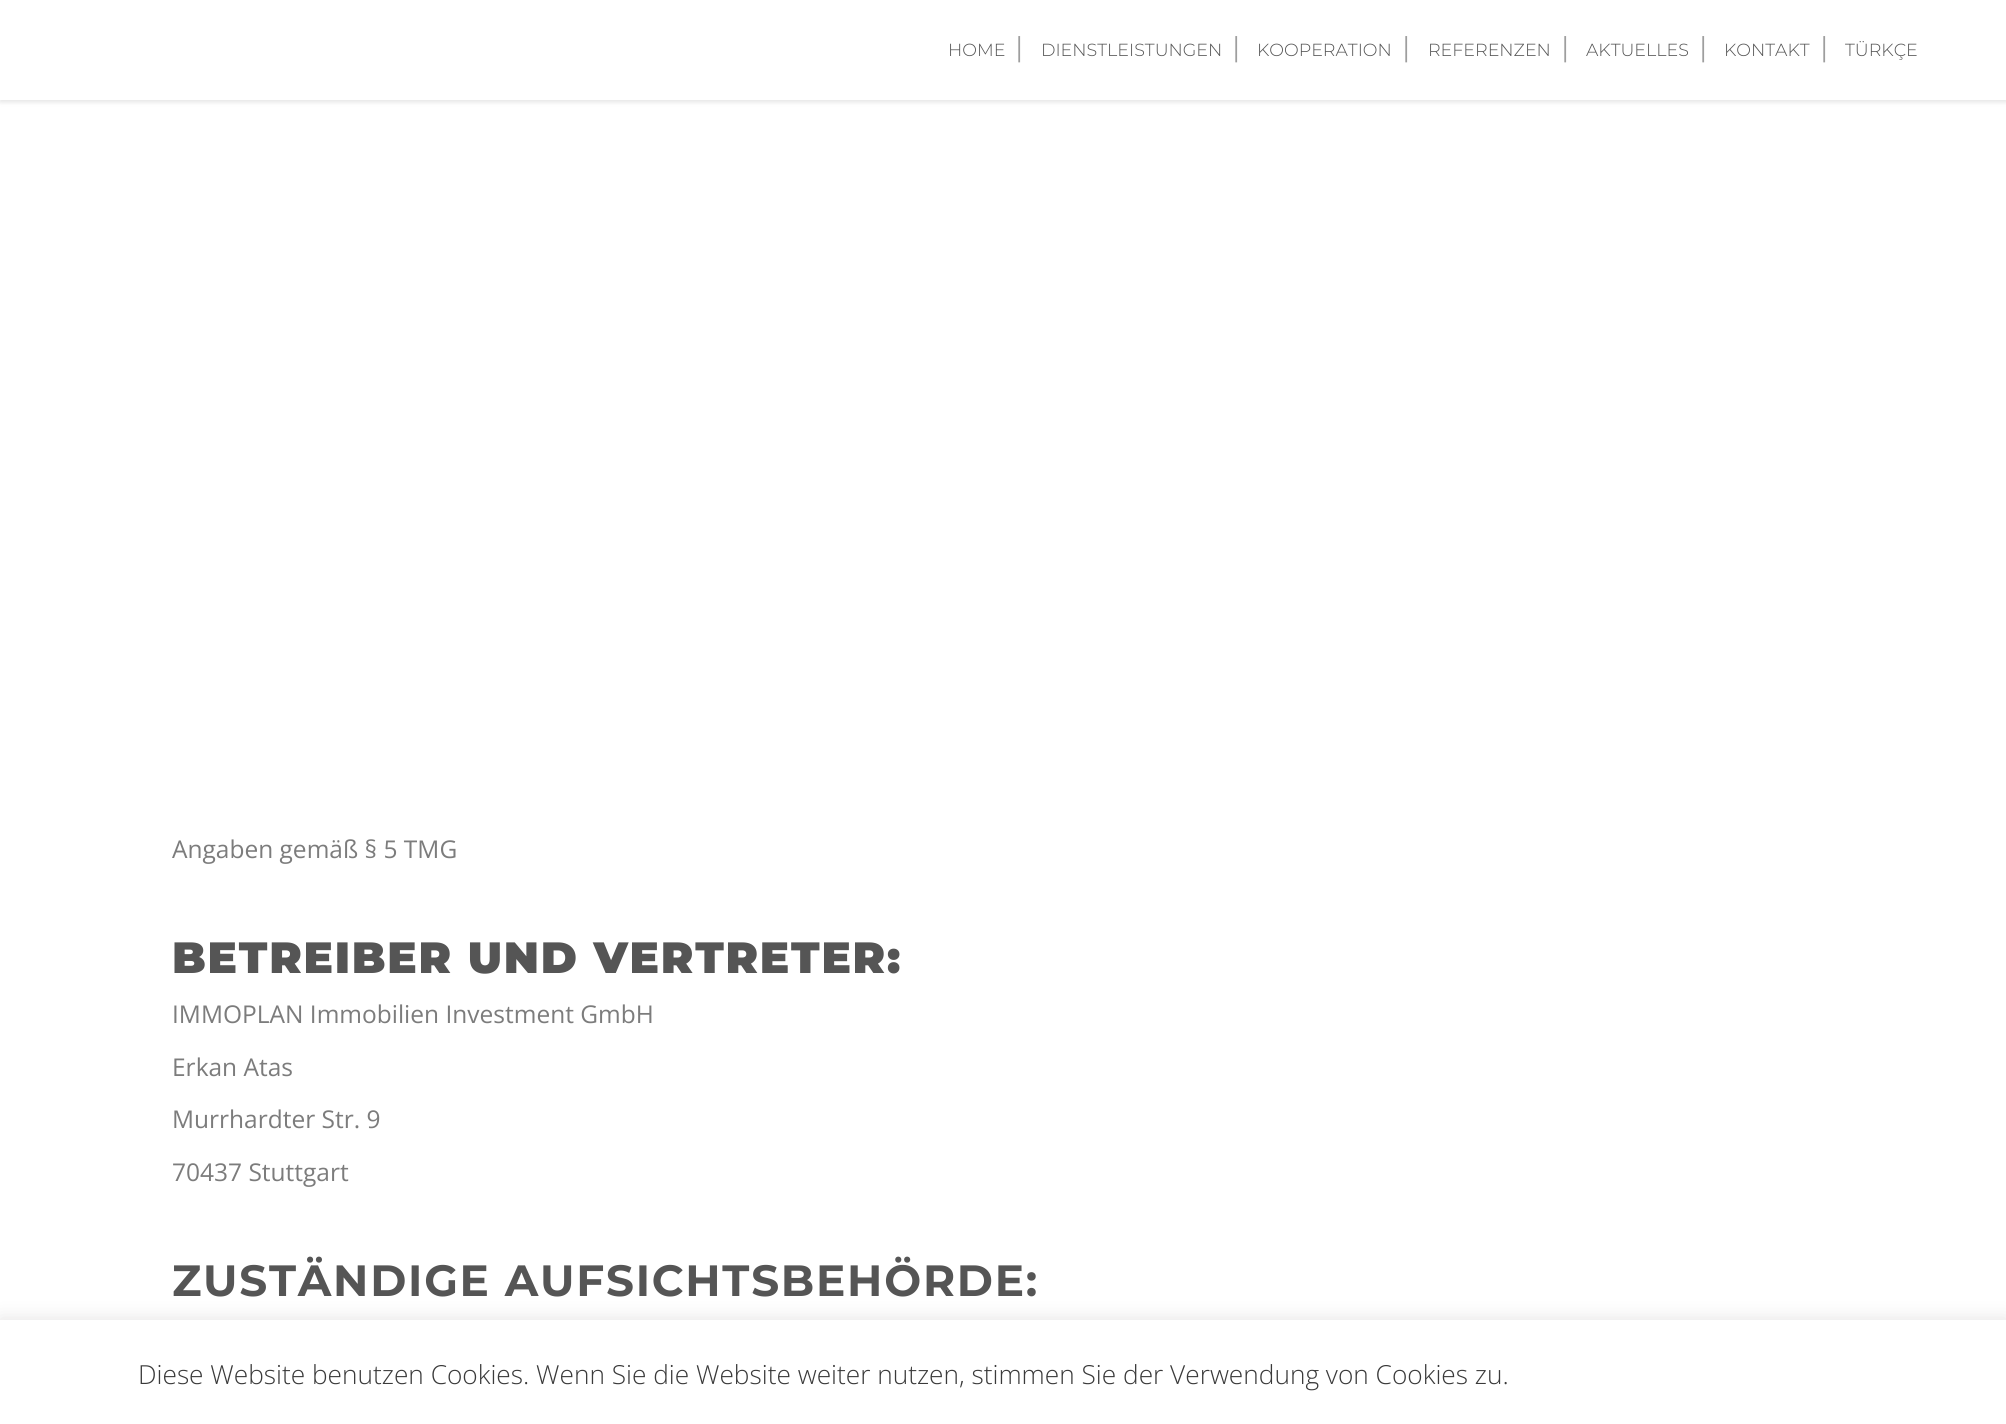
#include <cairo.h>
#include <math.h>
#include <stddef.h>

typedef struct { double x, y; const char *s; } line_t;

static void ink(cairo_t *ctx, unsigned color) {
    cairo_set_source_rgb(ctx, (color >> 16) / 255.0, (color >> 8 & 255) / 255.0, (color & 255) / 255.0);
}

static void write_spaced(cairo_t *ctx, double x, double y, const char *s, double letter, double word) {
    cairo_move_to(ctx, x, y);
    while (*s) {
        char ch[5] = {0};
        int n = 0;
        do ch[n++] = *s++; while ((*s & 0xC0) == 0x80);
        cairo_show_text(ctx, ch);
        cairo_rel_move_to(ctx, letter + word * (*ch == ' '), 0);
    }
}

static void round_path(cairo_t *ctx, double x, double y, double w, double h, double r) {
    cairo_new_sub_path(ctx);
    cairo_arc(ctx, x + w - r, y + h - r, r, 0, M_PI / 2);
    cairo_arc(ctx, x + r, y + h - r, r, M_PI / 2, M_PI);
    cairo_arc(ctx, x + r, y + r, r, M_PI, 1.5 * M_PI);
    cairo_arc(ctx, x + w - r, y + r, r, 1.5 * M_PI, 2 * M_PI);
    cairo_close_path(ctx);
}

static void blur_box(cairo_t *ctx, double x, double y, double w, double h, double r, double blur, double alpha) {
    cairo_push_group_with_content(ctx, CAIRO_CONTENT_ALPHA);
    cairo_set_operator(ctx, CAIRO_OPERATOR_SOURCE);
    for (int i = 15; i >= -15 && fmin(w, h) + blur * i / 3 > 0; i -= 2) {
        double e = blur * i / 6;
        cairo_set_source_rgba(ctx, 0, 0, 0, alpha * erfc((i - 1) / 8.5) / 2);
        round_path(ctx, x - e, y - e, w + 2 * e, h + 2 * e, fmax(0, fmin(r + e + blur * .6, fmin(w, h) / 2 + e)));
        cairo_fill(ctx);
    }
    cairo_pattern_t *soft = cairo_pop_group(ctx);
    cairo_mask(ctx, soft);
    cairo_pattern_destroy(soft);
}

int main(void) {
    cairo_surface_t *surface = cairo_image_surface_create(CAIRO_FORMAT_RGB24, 2006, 1424);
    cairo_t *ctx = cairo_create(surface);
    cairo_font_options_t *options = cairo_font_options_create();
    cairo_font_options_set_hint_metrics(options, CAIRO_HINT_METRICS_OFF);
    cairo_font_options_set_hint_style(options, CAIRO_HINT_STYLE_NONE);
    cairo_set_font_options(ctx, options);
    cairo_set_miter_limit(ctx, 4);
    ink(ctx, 0xFFFFFF);
    cairo_paint(ctx);
    ink(ctx, 0x000000);
    blur_box(ctx, 0, 2, 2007, 100, 0, 2.5, 0.11);
    ink(ctx, 0xFFFFFF);
    cairo_rectangle(ctx, 0, 0, 2006, 100);
    cairo_fill(ctx);
    cairo_select_font_face(ctx, "Montserrat Light", CAIRO_FONT_SLANT_NORMAL, CAIRO_FONT_WEIGHT_NORMAL);
    cairo_set_font_size(ctx, 17.5);
    ink(ctx, 0x555555);
    cairo_move_to(ctx, 948, 56);
    cairo_show_text(ctx, "HOME");
    cairo_select_font_face(ctx, "Open Sans", CAIRO_FONT_SLANT_NORMAL, CAIRO_FONT_WEIGHT_NORMAL);
    cairo_set_font_size(ctx, 26.25);
    ink(ctx, 0x9E9E9E);
    cairo_move_to(ctx, 1012, 56);
    cairo_show_text(ctx, "|");
    cairo_select_font_face(ctx, "Montserrat Light", CAIRO_FONT_SLANT_NORMAL, CAIRO_FONT_WEIGHT_NORMAL);
    cairo_set_font_size(ctx, 17.5);
    ink(ctx, 0x555555);
    cairo_move_to(ctx, 1041, 56);
    cairo_show_text(ctx, "DIENSTLEISTUNGEN");
    cairo_select_font_face(ctx, "Open Sans", CAIRO_FONT_SLANT_NORMAL, CAIRO_FONT_WEIGHT_NORMAL);
    cairo_set_font_size(ctx, 26.25);
    ink(ctx, 0x9E9E9E);
    cairo_move_to(ctx, 1229, 56);
    cairo_show_text(ctx, "|");
    cairo_select_font_face(ctx, "Montserrat Light", CAIRO_FONT_SLANT_NORMAL, CAIRO_FONT_WEIGHT_NORMAL);
    cairo_set_font_size(ctx, 17.5);
    ink(ctx, 0x555555);
    cairo_move_to(ctx, 1257, 56);
    cairo_show_text(ctx, "KOOPERATION");
    cairo_select_font_face(ctx, "Open Sans", CAIRO_FONT_SLANT_NORMAL, CAIRO_FONT_WEIGHT_NORMAL);
    cairo_set_font_size(ctx, 26.25);
    ink(ctx, 0x9E9E9E);
    cairo_move_to(ctx, 1399, 56);
    cairo_show_text(ctx, "|");
    cairo_select_font_face(ctx, "Montserrat Light", CAIRO_FONT_SLANT_NORMAL, CAIRO_FONT_WEIGHT_NORMAL);
    cairo_set_font_size(ctx, 17.5);
    ink(ctx, 0x555555);
    cairo_move_to(ctx, 1428, 56);
    cairo_show_text(ctx, "REFERENZEN");
    cairo_select_font_face(ctx, "Open Sans", CAIRO_FONT_SLANT_NORMAL, CAIRO_FONT_WEIGHT_NORMAL);
    cairo_set_font_size(ctx, 26.25);
    ink(ctx, 0x9E9E9E);
    cairo_move_to(ctx, 1558, 56);
    cairo_show_text(ctx, "|");
    cairo_select_font_face(ctx, "Montserrat Light", CAIRO_FONT_SLANT_NORMAL, CAIRO_FONT_WEIGHT_NORMAL);
    cairo_set_font_size(ctx, 17.5);
    ink(ctx, 0x555555);
    cairo_move_to(ctx, 1586, 56);
    cairo_show_text(ctx, "AKTUELLES");
    cairo_select_font_face(ctx, "Open Sans", CAIRO_FONT_SLANT_NORMAL, CAIRO_FONT_WEIGHT_NORMAL);
    cairo_set_font_size(ctx, 26.25);
    ink(ctx, 0x9E9E9E);
    cairo_move_to(ctx, 1696, 56);
    cairo_show_text(ctx, "|");
    cairo_select_font_face(ctx, "Montserrat Light", CAIRO_FONT_SLANT_NORMAL, CAIRO_FONT_WEIGHT_NORMAL);
    cairo_set_font_size(ctx, 17.5);
    ink(ctx, 0x555555);
    cairo_move_to(ctx, 1724, 56);
    cairo_show_text(ctx, "KONTAKT");
    cairo_select_font_face(ctx, "Open Sans", CAIRO_FONT_SLANT_NORMAL, CAIRO_FONT_WEIGHT_NORMAL);
    cairo_set_font_size(ctx, 26.25);
    ink(ctx, 0x9E9E9E);
    cairo_move_to(ctx, 1817, 56);
    cairo_show_text(ctx, "|");
    cairo_select_font_face(ctx, "Montserrat Light", CAIRO_FONT_SLANT_NORMAL, CAIRO_FONT_WEIGHT_NORMAL);
    cairo_set_font_size(ctx, 17.5);
    ink(ctx, 0x555555);
    cairo_move_to(ctx, 1845, 56);
    cairo_show_text(ctx, "TÜRKÇE");
    cairo_select_font_face(ctx, "Open Sans", CAIRO_FONT_SLANT_NORMAL, CAIRO_FONT_WEIGHT_NORMAL);
    cairo_set_font_size(ctx, 24.5);
    ink(ctx, 0x7C7C7C);
    cairo_move_to(ctx, 172, 858);
    cairo_show_text(ctx, "Angaben gemäß § 5 TMG");
    cairo_select_font_face(ctx, "Montserrat Black", CAIRO_FONT_SLANT_NORMAL, CAIRO_FONT_WEIGHT_NORMAL);
    cairo_set_font_size(ctx, 43.75);
    ink(ctx, 0x555555);
    write_spaced(ctx, 172, 973, "BETREIBER UND VERTRETER:", 1.75, 0);
    cairo_select_font_face(ctx, "Open Sans", CAIRO_FONT_SLANT_NORMAL, CAIRO_FONT_WEIGHT_NORMAL);
    cairo_set_font_size(ctx, 24.5);
    ink(ctx, 0x7C7C7C);
    {
        static const line_t items[] = {
            {172, 1023, "IMMOPLAN Immobilien Investment GmbH"},
            {172, 1076, "Erkan Atas"},
            {172, 1128, "Murrhardter Str. 9"},
            {172, 1181, "70437 Stuttgart"},
        };
        for (size_t i = 0; i < sizeof items / sizeof *items; i++) {
            cairo_move_to(ctx, items[i].x, items[i].y);
            cairo_show_text(ctx, items[i].s);
        }
    }
    cairo_select_font_face(ctx, "Montserrat", CAIRO_FONT_SLANT_NORMAL, CAIRO_FONT_WEIGHT_BOLD);
    cairo_set_font_size(ctx, 43.75);
    ink(ctx, 0x555555);
    write_spaced(ctx, 172, 1296, "ZUSTÄNDIGE AUFSICHTSBEHÖRDE:", 1.75, 0);
    ink(ctx, 0xACABAB);
    blur_box(ctx, 0, 1318, 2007, 105, 0, 9, 0.3);
    ink(ctx, 0xFFFFFF);
    cairo_rectangle(ctx, 0, 1320, 2006, 104);
    cairo_fill(ctx);
    cairo_select_font_face(ctx, "Open Sans Light", CAIRO_FONT_SLANT_NORMAL, CAIRO_FONT_WEIGHT_NORMAL);
    cairo_set_font_size(ctx, 26.25);
    ink(ctx, 0x3A3A3A);
    cairo_move_to(ctx, 138, 1384);
    cairo_show_text(ctx, "Diese Website benutzen Cookies. Wenn Sie die Website weiter nutzen, stimmen Sie der Verwendung von Cookies zu.");
    cairo_surface_write_to_png(surface, "image.png");
    cairo_font_options_destroy(options);
    cairo_destroy(ctx);
    cairo_surface_destroy(surface);
    return 0;
}
